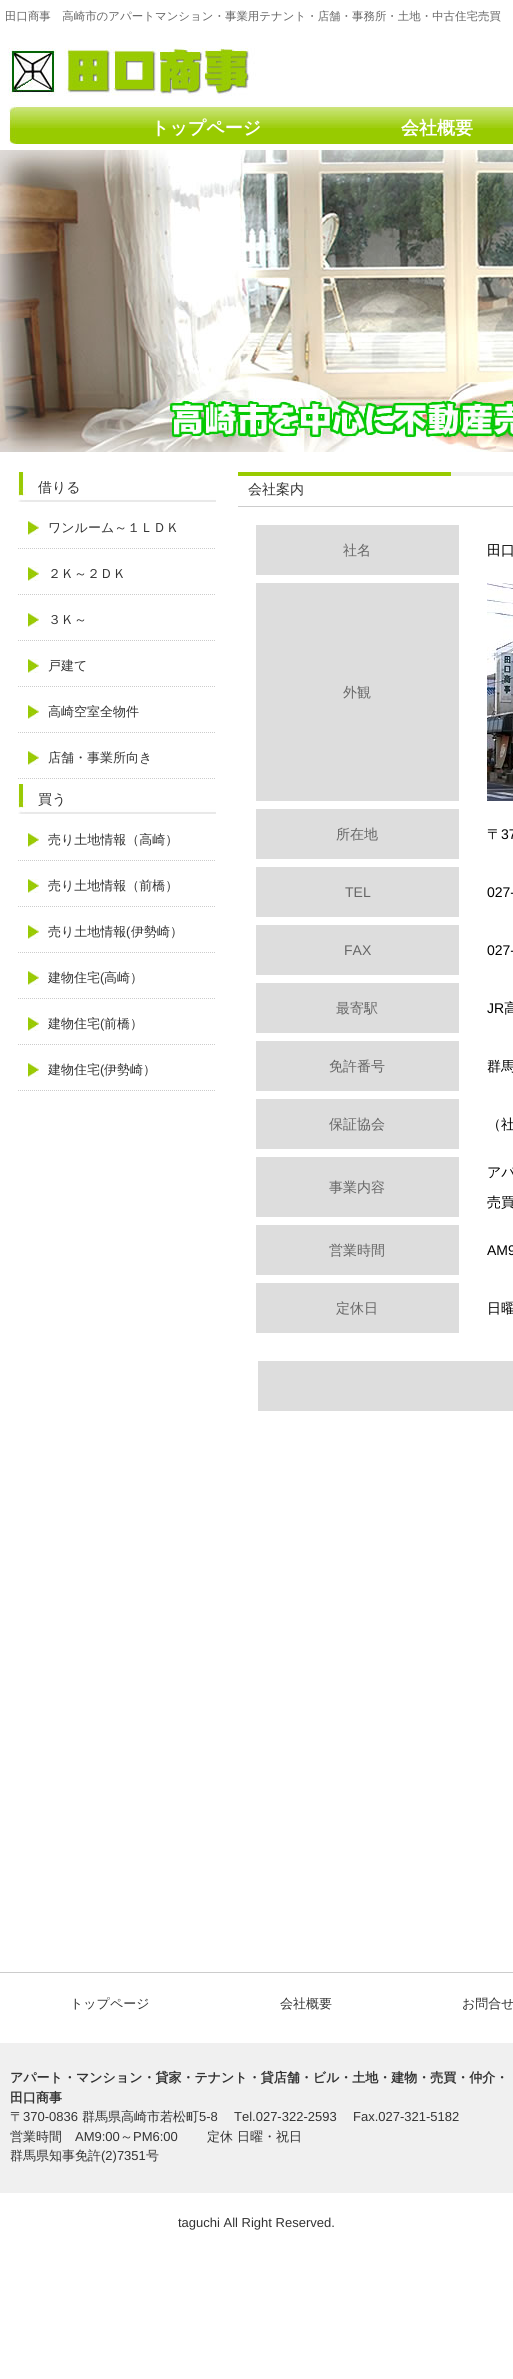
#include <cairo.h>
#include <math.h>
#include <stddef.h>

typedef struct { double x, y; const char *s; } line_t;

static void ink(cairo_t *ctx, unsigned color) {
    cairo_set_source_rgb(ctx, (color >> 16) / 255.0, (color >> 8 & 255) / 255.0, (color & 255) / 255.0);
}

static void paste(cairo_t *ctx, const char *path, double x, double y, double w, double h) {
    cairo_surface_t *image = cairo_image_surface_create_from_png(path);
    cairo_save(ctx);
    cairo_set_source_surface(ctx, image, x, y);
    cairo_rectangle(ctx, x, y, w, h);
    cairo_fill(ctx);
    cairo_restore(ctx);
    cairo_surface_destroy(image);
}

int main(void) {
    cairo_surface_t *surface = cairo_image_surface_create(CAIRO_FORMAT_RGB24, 513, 2379);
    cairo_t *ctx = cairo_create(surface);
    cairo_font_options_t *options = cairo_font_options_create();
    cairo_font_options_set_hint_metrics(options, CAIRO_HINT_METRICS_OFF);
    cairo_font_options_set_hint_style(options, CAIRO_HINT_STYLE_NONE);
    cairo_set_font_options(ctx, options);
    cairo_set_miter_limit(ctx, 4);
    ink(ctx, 0xFFFFFF);
    cairo_paint(ctx);
    paste(ctx, "media/1.png", 0, 0, 513, 150);
    paste(ctx, "media/2.png", 0, 48, 513, 96);
    cairo_select_font_face(ctx, "WenQuanYi Zen Hei Medium", CAIRO_FONT_SLANT_NORMAL, CAIRO_FONT_WEIGHT_NORMAL);
    cairo_set_font_size(ctx, 11.45);
    ink(ctx, 0x666666);
    cairo_move_to(ctx, 5, 20);
    cairo_show_text(ctx, "田口商事　高崎市のアパートマンション・事業用テナント・店舗・事務所・土地・中古住宅売買");
    cairo_select_font_face(ctx, "WenQuanYi Zen Hei", CAIRO_FONT_SLANT_NORMAL, CAIRO_FONT_WEIGHT_BOLD);
    cairo_set_font_size(ctx, 18);
    ink(ctx, 0xFFFFFF);
    cairo_move_to(ctx, 151, 134);
    cairo_show_text(ctx, "トップページ");
    cairo_move_to(ctx, 401, 134);
    cairo_show_text(ctx, "会社概要");
    paste(ctx, "media/3.png", 0, 150, 513, 302);
    paste(ctx, "media/4.png", 0, 150, 513, 302);
    paste(ctx, "media/5.png", 18, 472, 198, 30);
    cairo_select_font_face(ctx, "WenQuanYi Zen Hei Medium", CAIRO_FONT_SLANT_NORMAL, CAIRO_FONT_WEIGHT_NORMAL);
    cairo_set_font_size(ctx, 14);
    ink(ctx, 0x333333);
    cairo_move_to(ctx, 38, 492);
    cairo_show_text(ctx, "借りる");
    paste(ctx, "media/6.png", 28, 521, 11, 14);
    cairo_new_path(ctx);
    cairo_move_to(ctx, 18, 548.5);
    cairo_line_to(ctx, 216, 548.5);
    ink(ctx, 0xCCCCCC);
    cairo_set_line_width(ctx, 1);
    cairo_set_dash(ctx, (double[]){1, 1}, 2, 0);
    cairo_stroke(ctx);
    cairo_set_font_size(ctx, 13);
    ink(ctx, 0x333333);
    cairo_move_to(ctx, 48, 532);
    cairo_show_text(ctx, "ワンルーム～１ＬＤＫ");
    paste(ctx, "media/6.png", 28, 567, 11, 14);
    cairo_new_path(ctx);
    cairo_move_to(ctx, 18, 594.5);
    cairo_line_to(ctx, 216, 594.5);
    ink(ctx, 0xCCCCCC);
    cairo_stroke(ctx);
    ink(ctx, 0x333333);
    cairo_move_to(ctx, 48, 578);
    cairo_show_text(ctx, "２Ｋ～２ＤＫ");
    paste(ctx, "media/6.png", 28, 613, 11, 14);
    cairo_new_path(ctx);
    cairo_move_to(ctx, 18, 640.5);
    cairo_line_to(ctx, 216, 640.5);
    ink(ctx, 0xCCCCCC);
    cairo_stroke(ctx);
    ink(ctx, 0x333333);
    cairo_move_to(ctx, 48, 624);
    cairo_show_text(ctx, "３Ｋ～");
    paste(ctx, "media/6.png", 28, 659, 11, 14);
    cairo_new_path(ctx);
    cairo_move_to(ctx, 18, 686.5);
    cairo_line_to(ctx, 216, 686.5);
    ink(ctx, 0xCCCCCC);
    cairo_stroke(ctx);
    ink(ctx, 0x333333);
    cairo_move_to(ctx, 48, 670);
    cairo_show_text(ctx, "戸建て");
    paste(ctx, "media/6.png", 28, 705, 11, 14);
    cairo_new_path(ctx);
    cairo_move_to(ctx, 18, 732.5);
    cairo_line_to(ctx, 216, 732.5);
    ink(ctx, 0xCCCCCC);
    cairo_stroke(ctx);
    ink(ctx, 0x333333);
    cairo_move_to(ctx, 48, 716);
    cairo_show_text(ctx, "高崎空室全物件");
    paste(ctx, "media/6.png", 28, 751, 11, 14);
    cairo_new_path(ctx);
    cairo_move_to(ctx, 18, 778.5);
    cairo_line_to(ctx, 216, 778.5);
    ink(ctx, 0xCCCCCC);
    cairo_stroke(ctx);
    ink(ctx, 0x333333);
    cairo_move_to(ctx, 48, 762);
    cairo_show_text(ctx, "店舗・事業所向き");
    paste(ctx, "media/5.png", 18, 784, 198, 30);
    cairo_set_font_size(ctx, 14);
    cairo_move_to(ctx, 38, 804);
    cairo_show_text(ctx, "買う");
    paste(ctx, "media/6.png", 28, 833, 11, 14);
    cairo_new_path(ctx);
    cairo_move_to(ctx, 18, 860.5);
    cairo_line_to(ctx, 216, 860.5);
    ink(ctx, 0xCCCCCC);
    cairo_stroke(ctx);
    cairo_set_font_size(ctx, 13);
    ink(ctx, 0x333333);
    cairo_move_to(ctx, 48, 844);
    cairo_show_text(ctx, "売り土地情報（高崎）");
    paste(ctx, "media/6.png", 28, 879, 11, 14);
    cairo_new_path(ctx);
    cairo_move_to(ctx, 18, 906.5);
    cairo_line_to(ctx, 216, 906.5);
    ink(ctx, 0xCCCCCC);
    cairo_stroke(ctx);
    ink(ctx, 0x333333);
    cairo_move_to(ctx, 48, 890);
    cairo_show_text(ctx, "売り土地情報（前橋）");
    paste(ctx, "media/6.png", 28, 925, 11, 14);
    cairo_new_path(ctx);
    cairo_move_to(ctx, 18, 952.5);
    cairo_line_to(ctx, 216, 952.5);
    ink(ctx, 0xCCCCCC);
    cairo_stroke(ctx);
    ink(ctx, 0x333333);
    cairo_move_to(ctx, 48, 936);
    cairo_show_text(ctx, "売り土地情報");
    cairo_select_font_face(ctx, "Liberation Sans", CAIRO_FONT_SLANT_NORMAL, CAIRO_FONT_WEIGHT_NORMAL);
    cairo_move_to(ctx, 126, 936);
    cairo_show_text(ctx, "(");
    cairo_select_font_face(ctx, "WenQuanYi Zen Hei Medium", CAIRO_FONT_SLANT_NORMAL, CAIRO_FONT_WEIGHT_NORMAL);
    cairo_move_to(ctx, 131, 936);
    cairo_show_text(ctx, "伊勢崎）");
    paste(ctx, "media/6.png", 28, 971, 11, 14);
    cairo_new_path(ctx);
    cairo_move_to(ctx, 18, 998.5);
    cairo_line_to(ctx, 216, 998.5);
    ink(ctx, 0xCCCCCC);
    cairo_stroke(ctx);
    ink(ctx, 0x333333);
    cairo_move_to(ctx, 48, 982);
    cairo_show_text(ctx, "建物住宅");
    cairo_select_font_face(ctx, "Liberation Sans", CAIRO_FONT_SLANT_NORMAL, CAIRO_FONT_WEIGHT_NORMAL);
    cairo_move_to(ctx, 100, 982);
    cairo_show_text(ctx, "(");
    cairo_select_font_face(ctx, "WenQuanYi Zen Hei Medium", CAIRO_FONT_SLANT_NORMAL, CAIRO_FONT_WEIGHT_NORMAL);
    cairo_move_to(ctx, 104, 982);
    cairo_show_text(ctx, "高崎）");
    paste(ctx, "media/6.png", 28, 1017, 11, 14);
    cairo_new_path(ctx);
    cairo_move_to(ctx, 18, 1044.5);
    cairo_line_to(ctx, 216, 1044.5);
    ink(ctx, 0xCCCCCC);
    cairo_stroke(ctx);
    ink(ctx, 0x333333);
    cairo_move_to(ctx, 48, 1028);
    cairo_show_text(ctx, "建物住宅");
    cairo_select_font_face(ctx, "Liberation Sans", CAIRO_FONT_SLANT_NORMAL, CAIRO_FONT_WEIGHT_NORMAL);
    cairo_move_to(ctx, 100, 1028);
    cairo_show_text(ctx, "(");
    cairo_select_font_face(ctx, "WenQuanYi Zen Hei Medium", CAIRO_FONT_SLANT_NORMAL, CAIRO_FONT_WEIGHT_NORMAL);
    cairo_move_to(ctx, 104, 1028);
    cairo_show_text(ctx, "前橋）");
    paste(ctx, "media/6.png", 28, 1063, 11, 14);
    cairo_new_path(ctx);
    cairo_move_to(ctx, 18, 1090.5);
    cairo_line_to(ctx, 216, 1090.5);
    ink(ctx, 0xCCCCCC);
    cairo_stroke(ctx);
    ink(ctx, 0x333333);
    cairo_move_to(ctx, 48, 1074);
    cairo_show_text(ctx, "建物住宅");
    cairo_select_font_face(ctx, "Liberation Sans", CAIRO_FONT_SLANT_NORMAL, CAIRO_FONT_WEIGHT_NORMAL);
    cairo_move_to(ctx, 100, 1074);
    cairo_show_text(ctx, "(");
    cairo_select_font_face(ctx, "WenQuanYi Zen Hei Medium", CAIRO_FONT_SLANT_NORMAL, CAIRO_FONT_WEIGHT_NORMAL);
    cairo_move_to(ctx, 104, 1074);
    cairo_show_text(ctx, "伊勢崎）");
    paste(ctx, "media/7.png", 238, 472, 275, 35);
    cairo_set_font_size(ctx, 14);
    cairo_move_to(ctx, 248, 494);
    cairo_show_text(ctx, "会社案内");
    ink(ctx, 0xDDDDDD);
    cairo_rectangle(ctx, 256, 525, 203, 50);
    cairo_fill(ctx);
    ink(ctx, 0x666666);
    cairo_move_to(ctx, 343, 555);
    cairo_show_text(ctx, "社名");
    ink(ctx, 0x000000);
    cairo_move_to(ctx, 487, 555);
    cairo_show_text(ctx, "田口");
    ink(ctx, 0xDDDDDD);
    cairo_rectangle(ctx, 256, 583, 203, 218);
    cairo_fill(ctx);
    ink(ctx, 0x666666);
    cairo_move_to(ctx, 343, 697);
    cairo_show_text(ctx, "外観");
    paste(ctx, "media/8.png", 487, 583, 26, 218);
    ink(ctx, 0xDDDDDD);
    cairo_rectangle(ctx, 256, 809, 203, 50);
    cairo_fill(ctx);
    ink(ctx, 0x666666);
    cairo_move_to(ctx, 336, 839);
    cairo_show_text(ctx, "所在地");
    ink(ctx, 0x000000);
    cairo_move_to(ctx, 487, 839);
    cairo_show_text(ctx, "〒");
    cairo_select_font_face(ctx, "Liberation Sans", CAIRO_FONT_SLANT_NORMAL, CAIRO_FONT_WEIGHT_NORMAL);
    cairo_move_to(ctx, 501, 839);
    cairo_show_text(ctx, "37");
    ink(ctx, 0xDDDDDD);
    cairo_rectangle(ctx, 256, 867, 203, 50);
    cairo_fill(ctx);
    ink(ctx, 0x666666);
    cairo_move_to(ctx, 345, 897);
    cairo_show_text(ctx, "TEL");
    ink(ctx, 0x000000);
    cairo_move_to(ctx, 487, 897);
    cairo_show_text(ctx, "027-");
    ink(ctx, 0xDDDDDD);
    cairo_rectangle(ctx, 256, 925, 203, 50);
    cairo_fill(ctx);
    ink(ctx, 0x666666);
    cairo_move_to(ctx, 344, 955);
    cairo_show_text(ctx, "FAX");
    ink(ctx, 0x000000);
    cairo_move_to(ctx, 487, 955);
    cairo_show_text(ctx, "027-");
    ink(ctx, 0xDDDDDD);
    cairo_rectangle(ctx, 256, 983, 203, 50);
    cairo_fill(ctx);
    cairo_select_font_face(ctx, "WenQuanYi Zen Hei Medium", CAIRO_FONT_SLANT_NORMAL, CAIRO_FONT_WEIGHT_NORMAL);
    ink(ctx, 0x666666);
    cairo_move_to(ctx, 336, 1013);
    cairo_show_text(ctx, "最寄駅");
    cairo_select_font_face(ctx, "Liberation Sans", CAIRO_FONT_SLANT_NORMAL, CAIRO_FONT_WEIGHT_NORMAL);
    ink(ctx, 0x000000);
    cairo_move_to(ctx, 487, 1013);
    cairo_show_text(ctx, "JR");
    cairo_select_font_face(ctx, "WenQuanYi Zen Hei Medium", CAIRO_FONT_SLANT_NORMAL, CAIRO_FONT_WEIGHT_NORMAL);
    cairo_move_to(ctx, 504, 1013);
    cairo_show_text(ctx, "高");
    ink(ctx, 0xDDDDDD);
    cairo_rectangle(ctx, 256, 1041, 203, 50);
    cairo_fill(ctx);
    ink(ctx, 0x666666);
    cairo_move_to(ctx, 329, 1071);
    cairo_show_text(ctx, "免許番号");
    ink(ctx, 0x000000);
    cairo_move_to(ctx, 487, 1071);
    cairo_show_text(ctx, "群馬");
    ink(ctx, 0xDDDDDD);
    cairo_rectangle(ctx, 256, 1099, 203, 50);
    cairo_fill(ctx);
    ink(ctx, 0x666666);
    cairo_move_to(ctx, 329, 1129);
    cairo_show_text(ctx, "保証協会");
    ink(ctx, 0x000000);
    cairo_move_to(ctx, 487, 1129);
    cairo_show_text(ctx, "（社");
    ink(ctx, 0xDDDDDD);
    cairo_rectangle(ctx, 256, 1157, 203, 60);
    cairo_fill(ctx);
    ink(ctx, 0x666666);
    cairo_move_to(ctx, 329, 1192);
    cairo_show_text(ctx, "事業内容");
    ink(ctx, 0x000000);
    cairo_move_to(ctx, 487, 1177);
    cairo_show_text(ctx, "アパ");
    cairo_move_to(ctx, 487, 1207);
    cairo_show_text(ctx, "売買");
    ink(ctx, 0xDDDDDD);
    cairo_rectangle(ctx, 256, 1225, 203, 50);
    cairo_fill(ctx);
    ink(ctx, 0x666666);
    cairo_move_to(ctx, 329, 1255);
    cairo_show_text(ctx, "営業時間");
    cairo_select_font_face(ctx, "Liberation Sans", CAIRO_FONT_SLANT_NORMAL, CAIRO_FONT_WEIGHT_NORMAL);
    ink(ctx, 0x000000);
    cairo_move_to(ctx, 487, 1255);
    cairo_show_text(ctx, "AM9");
    ink(ctx, 0xDDDDDD);
    cairo_rectangle(ctx, 256, 1283, 203, 50);
    cairo_fill(ctx);
    cairo_select_font_face(ctx, "WenQuanYi Zen Hei Medium", CAIRO_FONT_SLANT_NORMAL, CAIRO_FONT_WEIGHT_NORMAL);
    ink(ctx, 0x666666);
    cairo_move_to(ctx, 336, 1313);
    cairo_show_text(ctx, "定休日");
    ink(ctx, 0x000000);
    cairo_move_to(ctx, 487, 1313);
    cairo_show_text(ctx, "日曜");
    ink(ctx, 0xDDDDDD);
    cairo_rectangle(ctx, 258, 1361, 255, 50);
    cairo_fill(ctx);
    ink(ctx, 0xCCCCCC);
    cairo_rectangle(ctx, 0, 1972, 513, 1);
    cairo_fill(ctx);
    cairo_set_font_size(ctx, 13);
    ink(ctx, 0x333333);
    {
        static const line_t items[] = {
            {70, 2008, "トップページ"},
            {280, 2008, "会社概要"},
            {462, 2008, "お問合せ"},
        };
        for (size_t i = 0; i < sizeof items / sizeof *items; i++) {
            cairo_move_to(ctx, items[i].x, items[i].y);
            cairo_show_text(ctx, items[i].s);
        }
    }
    ink(ctx, 0xF0F0F0);
    cairo_rectangle(ctx, 0, 2043, 513, 150);
    cairo_fill(ctx);
    cairo_select_font_face(ctx, "WenQuanYi Zen Hei", CAIRO_FONT_SLANT_NORMAL, CAIRO_FONT_WEIGHT_BOLD);
    ink(ctx, 0x333333);
    cairo_move_to(ctx, 10, 2082);
    cairo_show_text(ctx, "アパート・マンション・貸家・テナント・貸店舗・ビル・土地・建物・売買・仲介・");
    cairo_move_to(ctx, 10, 2102);
    cairo_show_text(ctx, "田口商事");
    cairo_select_font_face(ctx, "WenQuanYi Zen Hei Medium", CAIRO_FONT_SLANT_NORMAL, CAIRO_FONT_WEIGHT_NORMAL);
    cairo_move_to(ctx, 10, 2121);
    cairo_show_text(ctx, "〒");
    cairo_select_font_face(ctx, "Liberation Sans", CAIRO_FONT_SLANT_NORMAL, CAIRO_FONT_WEIGHT_NORMAL);
    cairo_move_to(ctx, 23, 2121);
    cairo_show_text(ctx, "370-0836");
    cairo_select_font_face(ctx, "WenQuanYi Zen Hei Medium", CAIRO_FONT_SLANT_NORMAL, CAIRO_FONT_WEIGHT_NORMAL);
    cairo_move_to(ctx, 82, 2121);
    cairo_show_text(ctx, "群馬県高崎市若松町");
    cairo_select_font_face(ctx, "Liberation Sans", CAIRO_FONT_SLANT_NORMAL, CAIRO_FONT_WEIGHT_NORMAL);
    {
        static const line_t items[] = {
            {199, 2121, "5-8"},
            {234, 2121, "Tel.027-322-2593"},
            {353, 2121, "Fax.027-321-5182"},
        };
        for (size_t i = 0; i < sizeof items / sizeof *items; i++) {
            cairo_move_to(ctx, items[i].x, items[i].y);
            cairo_show_text(ctx, items[i].s);
        }
    }
    cairo_select_font_face(ctx, "WenQuanYi Zen Hei Medium", CAIRO_FONT_SLANT_NORMAL, CAIRO_FONT_WEIGHT_NORMAL);
    cairo_move_to(ctx, 10, 2141);
    cairo_show_text(ctx, "営業時間");
    cairo_select_font_face(ctx, "Liberation Sans", CAIRO_FONT_SLANT_NORMAL, CAIRO_FONT_WEIGHT_NORMAL);
    cairo_move_to(ctx, 75, 2141);
    cairo_show_text(ctx, "AM9:00");
    cairo_select_font_face(ctx, "WenQuanYi Zen Hei Medium", CAIRO_FONT_SLANT_NORMAL, CAIRO_FONT_WEIGHT_NORMAL);
    cairo_move_to(ctx, 120, 2141);
    cairo_show_text(ctx, "～");
    cairo_select_font_face(ctx, "Liberation Sans", CAIRO_FONT_SLANT_NORMAL, CAIRO_FONT_WEIGHT_NORMAL);
    cairo_move_to(ctx, 133, 2141);
    cairo_show_text(ctx, "PM6:00");
    cairo_select_font_face(ctx, "WenQuanYi Zen Hei Medium", CAIRO_FONT_SLANT_NORMAL, CAIRO_FONT_WEIGHT_NORMAL);
    cairo_move_to(ctx, 207, 2141);
    cairo_show_text(ctx, "定休 日曜・祝日");
    cairo_move_to(ctx, 10, 2160);
    cairo_show_text(ctx, "群馬県知事免許");
    cairo_select_font_face(ctx, "Liberation Sans", CAIRO_FONT_SLANT_NORMAL, CAIRO_FONT_WEIGHT_NORMAL);
    cairo_move_to(ctx, 101, 2160);
    cairo_show_text(ctx, "(2)7351");
    cairo_select_font_face(ctx, "WenQuanYi Zen Hei Medium", CAIRO_FONT_SLANT_NORMAL, CAIRO_FONT_WEIGHT_NORMAL);
    cairo_move_to(ctx, 146, 2160);
    cairo_show_text(ctx, "号");
    cairo_select_font_face(ctx, "Liberation Sans", CAIRO_FONT_SLANT_NORMAL, CAIRO_FONT_WEIGHT_NORMAL);
    cairo_move_to(ctx, 178, 2227);
    cairo_show_text(ctx, "taguchi All Right Reserved.");
    cairo_surface_write_to_png(surface, "image.png");
    cairo_font_options_destroy(options);
    cairo_destroy(ctx);
    cairo_surface_destroy(surface);
    return 0;
}
